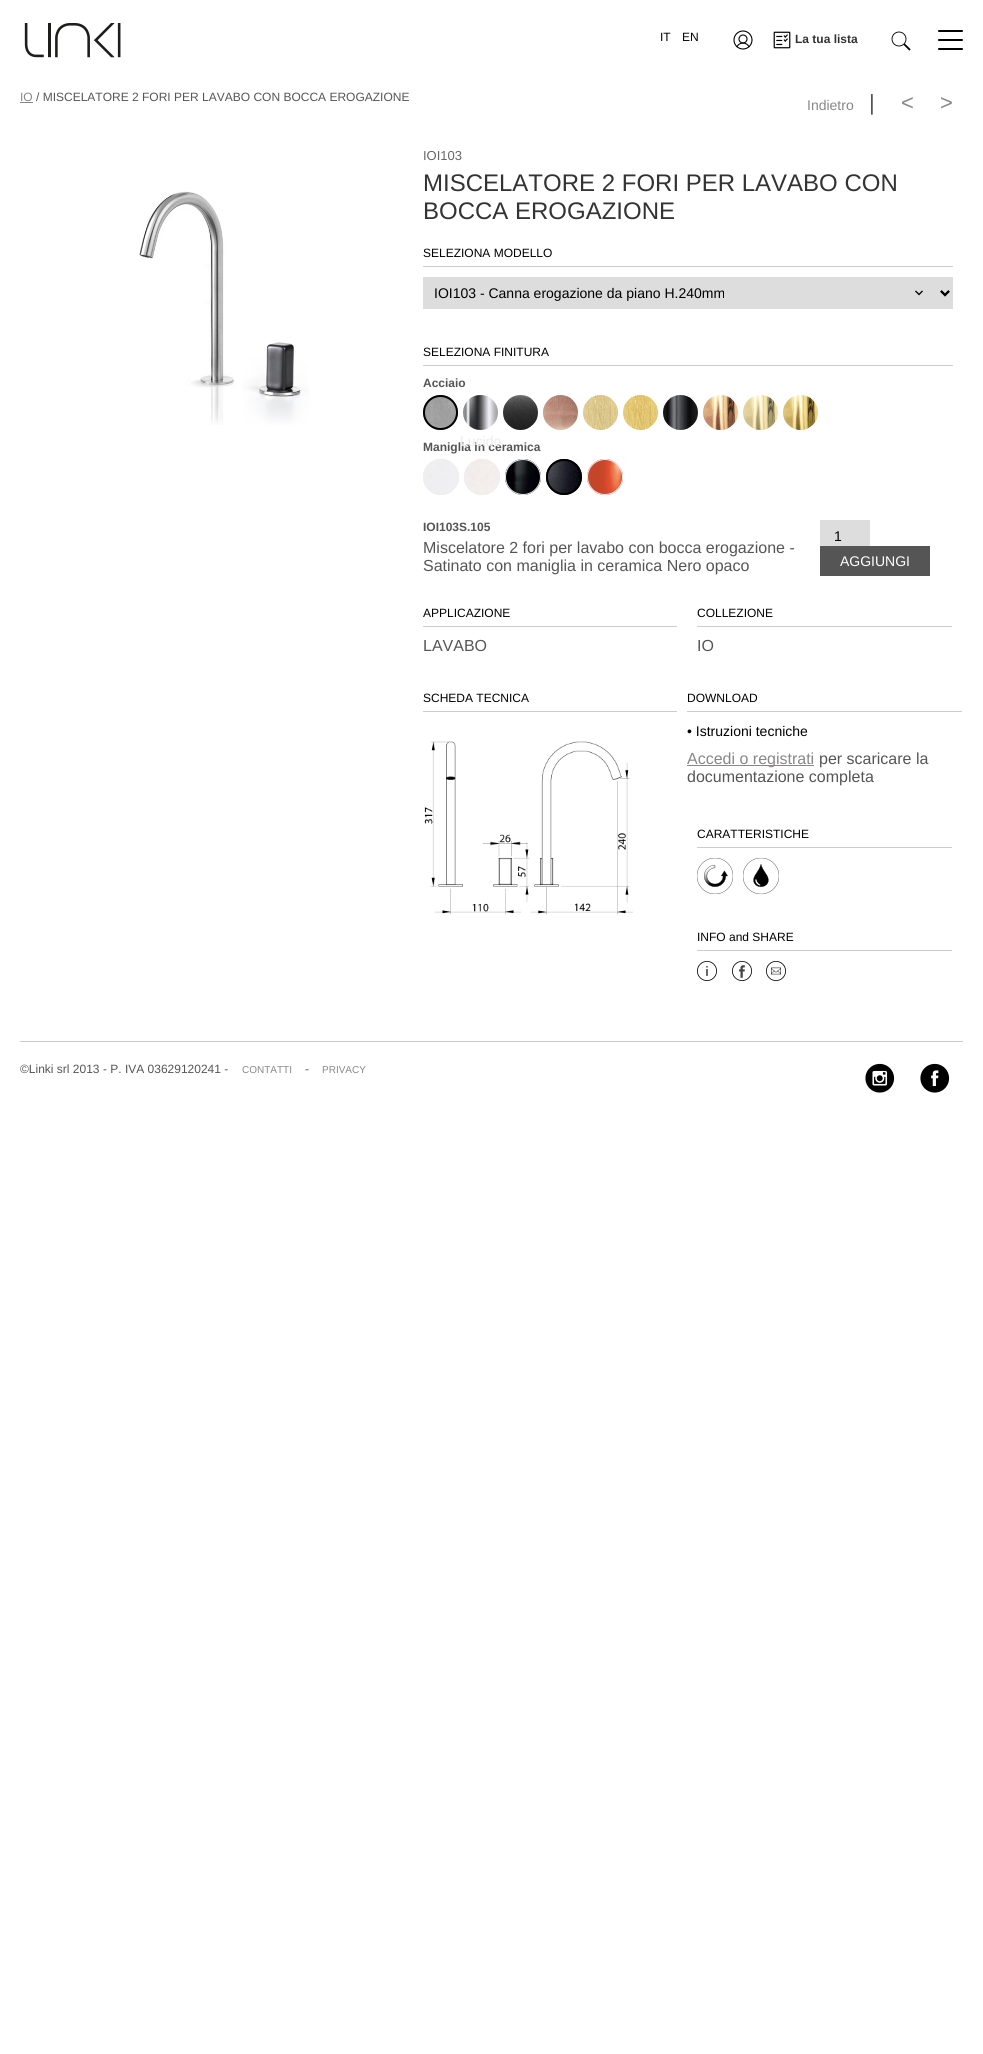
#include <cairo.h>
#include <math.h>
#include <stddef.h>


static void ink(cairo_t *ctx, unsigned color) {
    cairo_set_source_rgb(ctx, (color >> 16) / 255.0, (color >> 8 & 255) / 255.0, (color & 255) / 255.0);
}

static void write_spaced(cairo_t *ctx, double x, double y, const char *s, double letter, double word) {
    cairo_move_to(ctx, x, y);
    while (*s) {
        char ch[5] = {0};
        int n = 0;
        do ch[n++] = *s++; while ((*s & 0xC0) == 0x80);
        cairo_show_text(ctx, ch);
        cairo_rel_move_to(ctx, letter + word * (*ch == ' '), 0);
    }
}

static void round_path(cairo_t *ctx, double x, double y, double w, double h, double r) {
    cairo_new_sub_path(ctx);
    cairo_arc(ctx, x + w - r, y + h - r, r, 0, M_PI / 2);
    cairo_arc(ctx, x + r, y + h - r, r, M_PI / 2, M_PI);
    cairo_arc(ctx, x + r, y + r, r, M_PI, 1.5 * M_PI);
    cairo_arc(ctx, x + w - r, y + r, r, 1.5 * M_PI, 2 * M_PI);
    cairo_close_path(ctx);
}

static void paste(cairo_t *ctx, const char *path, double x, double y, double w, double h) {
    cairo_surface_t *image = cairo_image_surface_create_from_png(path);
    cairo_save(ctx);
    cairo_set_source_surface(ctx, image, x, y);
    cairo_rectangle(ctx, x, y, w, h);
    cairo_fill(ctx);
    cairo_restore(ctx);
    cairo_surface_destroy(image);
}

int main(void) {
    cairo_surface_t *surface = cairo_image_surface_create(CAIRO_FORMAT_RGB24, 983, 2054);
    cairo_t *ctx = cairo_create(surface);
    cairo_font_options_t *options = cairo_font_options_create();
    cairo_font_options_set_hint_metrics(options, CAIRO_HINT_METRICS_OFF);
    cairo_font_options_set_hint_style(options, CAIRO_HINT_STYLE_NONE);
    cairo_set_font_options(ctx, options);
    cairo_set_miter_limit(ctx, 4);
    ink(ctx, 0xFFFFFF);
    cairo_paint(ctx);
    paste(ctx, "media/1.png", 24, 22, 97, 36);
    cairo_select_font_face(ctx, "Liberation Sans", CAIRO_FONT_SLANT_NORMAL, CAIRO_FONT_WEIGHT_NORMAL);
    cairo_set_font_size(ctx, 12);
    ink(ctx, 0x000000);
    cairo_move_to(ctx, 660, 41);
    cairo_show_text(ctx, "IT");
    cairo_move_to(ctx, 682, 41);
    cairo_show_text(ctx, "EN");
    paste(ctx, "media/2.png", 733, 30, 20, 20);
    paste(ctx, "media/3.png", 773, 31, 18, 18);
    cairo_select_font_face(ctx, "Liberation Sans", CAIRO_FONT_SLANT_NORMAL, CAIRO_FONT_WEIGHT_BOLD);
    ink(ctx, 0x333333);
    cairo_move_to(ctx, 795, 43);
    cairo_show_text(ctx, "La tua lista");
    cairo_new_path(ctx);
    cairo_arc(ctx, 899, 39, 7, 0, 2 * M_PI);
    ink(ctx, 0x000000);
    cairo_set_line_width(ctx, 0.9);
    cairo_stroke(ctx);
    cairo_new_path(ctx);
    cairo_move_to(ctx, 904, 44);
    cairo_line_to(ctx, 910, 50);
    cairo_set_line_width(ctx, 1.8);
    cairo_stroke(ctx);
    round_path(ctx, 938, 30, 25, 2, 1);
    cairo_fill(ctx);
    round_path(ctx, 938, 39, 25, 2, 1);
    cairo_fill(ctx);
    round_path(ctx, 938, 48, 25, 2, 1);
    cairo_fill(ctx);
    cairo_select_font_face(ctx, "Liberation Sans", CAIRO_FONT_SLANT_NORMAL, CAIRO_FONT_WEIGHT_NORMAL);
    ink(ctx, 0x898687);
    cairo_move_to(ctx, 20, 101);
    cairo_show_text(ctx, "IO");
    cairo_rectangle(ctx, 20, 102, 13, 1);
    cairo_fill(ctx);
    ink(ctx, 0x555555);
    cairo_move_to(ctx, 36, 101);
    cairo_show_text(ctx, "/ MISCELATORE 2 FORI PER LAVABO CON BOCCA EROGAZIONE");
    cairo_set_font_size(ctx, 14);
    ink(ctx, 0x898687);
    cairo_move_to(ctx, 807, 110);
    cairo_show_text(ctx, "Indietro");
    cairo_set_font_size(ctx, 22);
    ink(ctx, 0x555555);
    write_spaced(ctx, 869, 110, "|", 10, 0);
    ink(ctx, 0x898687);
    write_spaced(ctx, 901, 110, "< >", 10, 0);
    paste(ctx, "media/4.png", 139, 191, 170, 234);
    cairo_set_font_size(ctx, 13);
    ink(ctx, 0x666666);
    cairo_move_to(ctx, 423, 160);
    cairo_show_text(ctx, "IOI103");
    cairo_set_font_size(ctx, 24);
    ink(ctx, 0x333333);
    cairo_move_to(ctx, 423, 191);
    cairo_show_text(ctx, "MISCELATORE 2 FORI PER LAVABO CON");
    cairo_move_to(ctx, 423, 219);
    cairo_show_text(ctx, "BOCCA EROGAZIONE");
    cairo_set_font_size(ctx, 12);
    ink(ctx, 0x000000);
    cairo_move_to(ctx, 423, 257);
    cairo_show_text(ctx, "SELEZIONA MODELLO");
    ink(ctx, 0xCCCCCC);
    cairo_rectangle(ctx, 423, 266, 530, 1);
    cairo_fill(ctx);
    ink(ctx, 0xDDDDDD);
    cairo_rectangle(ctx, 423, 277, 530, 32);
    cairo_fill(ctx);
    paste(ctx, "media/5.png", 915, 290, 35, 7);
    cairo_new_path(ctx);
    cairo_move_to(ctx, 941, 291);
    cairo_line_to(ctx, 945, 295);
    cairo_line_to(ctx, 949, 291);
    ink(ctx, 0x000000);
    cairo_set_line_width(ctx, 2);
    cairo_stroke(ctx);
    cairo_set_font_size(ctx, 14);
    cairo_move_to(ctx, 434, 298);
    cairo_show_text(ctx, "IOI103 - Canna erogazione da piano H.240mm");
    cairo_set_font_size(ctx, 12);
    cairo_move_to(ctx, 423, 356);
    cairo_show_text(ctx, "SELEZIONA FINITURA");
    ink(ctx, 0xCCCCCC);
    cairo_rectangle(ctx, 423, 365, 530, 1);
    cairo_fill(ctx);
    cairo_select_font_face(ctx, "Liberation Sans", CAIRO_FONT_SLANT_NORMAL, CAIRO_FONT_WEIGHT_BOLD);
    ink(ctx, 0x555555);
    cairo_move_to(ctx, 423, 387);
    cairo_show_text(ctx, "Acciaio");
    paste(ctx, "media/6.png", 423, 395, 35, 35);
    cairo_arc(ctx, 440.5, 412.5, 16.5, 0, 2 * M_PI);
    ink(ctx, 0x000000);
    cairo_stroke(ctx);
    paste(ctx, "media/7.png", 503, 395, 35, 35);
    paste(ctx, "media/8.png", 543, 395, 35, 35);
    paste(ctx, "media/9.png", 583, 395, 35, 35);
    paste(ctx, "media/10.png", 623, 395, 35, 35);
    paste(ctx, "media/11.png", 663, 395, 35, 35);
    paste(ctx, "media/12.png", 703, 395, 35, 35);
    paste(ctx, "media/13.png", 743, 395, 35, 35);
    paste(ctx, "media/14.png", 783, 395, 35, 35);
    paste(ctx, "media/15.png", 463, 395, 35, 35);
    ink(ctx, 0x555555);
    cairo_move_to(ctx, 423, 451);
    cairo_show_text(ctx, "Maniglia in ceramica");
    cairo_select_font_face(ctx, "Liberation Sans", CAIRO_FONT_SLANT_NORMAL, CAIRO_FONT_WEIGHT_NORMAL);
    cairo_set_font_size(ctx, 14);
    ink(ctx, 0xEBEBEB);
    cairo_move_to(ctx, 460, 446);
    cairo_show_text(ctx, "Lucido");
    paste(ctx, "media/16.png", 423, 459, 36, 36);
    cairo_arc(ctx, 441, 477, 17.5, 0, 2 * M_PI);
    ink(ctx, 0xEEEEEE);
    cairo_set_line_width(ctx, 1);
    cairo_stroke(ctx);
    paste(ctx, "media/17.png", 464, 459, 36, 36);
    cairo_arc(ctx, 482, 477, 17.5, 0, 2 * M_PI);
    cairo_stroke(ctx);
    paste(ctx, "media/18.png", 505, 459, 36, 36);
    cairo_arc(ctx, 523, 477, 17.5, 0, 2 * M_PI);
    cairo_stroke(ctx);
    paste(ctx, "media/19.png", 546, 459, 36, 36);
    cairo_arc(ctx, 564, 477, 17, 0, 2 * M_PI);
    ink(ctx, 0x000000);
    cairo_set_line_width(ctx, 2);
    cairo_stroke(ctx);
    paste(ctx, "media/20.png", 587, 459, 36, 36);
    cairo_arc(ctx, 605, 477, 17.5, 0, 2 * M_PI);
    ink(ctx, 0xEEEEEE);
    cairo_set_line_width(ctx, 1);
    cairo_stroke(ctx);
    cairo_select_font_face(ctx, "Liberation Sans", CAIRO_FONT_SLANT_NORMAL, CAIRO_FONT_WEIGHT_BOLD);
    cairo_set_font_size(ctx, 12);
    ink(ctx, 0x555555);
    cairo_move_to(ctx, 423, 531);
    cairo_show_text(ctx, "IOI103S.105");
    cairo_select_font_face(ctx, "Liberation Sans", CAIRO_FONT_SLANT_NORMAL, CAIRO_FONT_WEIGHT_NORMAL);
    cairo_set_font_size(ctx, 16);
    cairo_move_to(ctx, 423, 553);
    cairo_show_text(ctx, "Miscelatore 2 fori per lavabo con bocca erogazione -");
    cairo_move_to(ctx, 423, 571);
    cairo_show_text(ctx, "Satinato con maniglia in ceramica Nero opaco");
    ink(ctx, 0xDDDDDD);
    cairo_rectangle(ctx, 820, 520, 50, 26);
    cairo_fill(ctx);
    cairo_set_font_size(ctx, 14);
    ink(ctx, 0x000000);
    cairo_move_to(ctx, 834, 541);
    cairo_show_text(ctx, "1");
    ink(ctx, 0x555555);
    cairo_rectangle(ctx, 820, 546, 110, 30);
    cairo_fill(ctx);
    ink(ctx, 0xFFFFFF);
    cairo_move_to(ctx, 840, 566);
    cairo_show_text(ctx, "AGGIUNGI");
    cairo_set_font_size(ctx, 12);
    ink(ctx, 0x000000);
    cairo_move_to(ctx, 423, 617);
    cairo_show_text(ctx, "APPLICAZIONE");
    ink(ctx, 0xCCCCCC);
    cairo_rectangle(ctx, 423, 626, 254, 1);
    cairo_fill(ctx);
    cairo_set_font_size(ctx, 16);
    ink(ctx, 0x555555);
    cairo_move_to(ctx, 423, 651);
    cairo_show_text(ctx, "LAVABO");
    cairo_set_font_size(ctx, 12);
    ink(ctx, 0x000000);
    cairo_move_to(ctx, 697, 617);
    cairo_show_text(ctx, "COLLEZIONE");
    ink(ctx, 0xCCCCCC);
    cairo_rectangle(ctx, 697, 626, 255, 1);
    cairo_fill(ctx);
    cairo_set_font_size(ctx, 16);
    ink(ctx, 0x555555);
    cairo_move_to(ctx, 697, 651);
    cairo_show_text(ctx, "IO");
    cairo_set_font_size(ctx, 12);
    ink(ctx, 0x000000);
    cairo_move_to(ctx, 423, 702);
    cairo_show_text(ctx, "SCHEDA TECNICA");
    ink(ctx, 0xCCCCCC);
    cairo_rectangle(ctx, 423, 711, 254, 1);
    cairo_fill(ctx);
    paste(ctx, "media/21.png", 424, 741, 209, 174);
    ink(ctx, 0x000000);
    cairo_move_to(ctx, 687, 702);
    cairo_show_text(ctx, "DOWNLOAD");
    ink(ctx, 0xCCCCCC);
    cairo_rectangle(ctx, 687, 711, 275, 1);
    cairo_fill(ctx);
    cairo_set_font_size(ctx, 14);
    ink(ctx, 0x000000);
    cairo_move_to(ctx, 687, 736);
    cairo_show_text(ctx, "• Istruzioni tecniche");
    ink(ctx, 0x898687);
    cairo_rectangle(ctx, 687, 765, 127, 1);
    cairo_fill(ctx);
    cairo_set_font_size(ctx, 16);
    cairo_move_to(ctx, 687, 764);
    cairo_show_text(ctx, "Accedi o registrati");
    ink(ctx, 0x555555);
    cairo_move_to(ctx, 819, 764);
    cairo_show_text(ctx, "per scaricare la");
    cairo_move_to(ctx, 687, 782);
    cairo_show_text(ctx, "documentazione completa");
    cairo_set_font_size(ctx, 12);
    ink(ctx, 0x000000);
    cairo_move_to(ctx, 697, 838);
    cairo_show_text(ctx, "CARATTERISTICHE");
    ink(ctx, 0xCCCCCC);
    cairo_rectangle(ctx, 697, 847, 255, 1);
    cairo_fill(ctx);
    paste(ctx, "media/22.png", 697, 858, 36, 36);
    paste(ctx, "media/23.png", 743, 858, 36, 36);
    ink(ctx, 0x000000);
    cairo_move_to(ctx, 697, 941);
    cairo_show_text(ctx, "INFO and SHARE");
    ink(ctx, 0xCCCCCC);
    cairo_rectangle(ctx, 697, 950, 255, 1);
    cairo_fill(ctx);
    paste(ctx, "media/24.png", 697, 961, 20, 20);
    paste(ctx, "media/25.png", 732, 961, 20, 20);
    paste(ctx, "media/26.png", 766, 961, 20, 20);
    cairo_rectangle(ctx, 20, 1041, 943, 1);
    cairo_fill(ctx);
    ink(ctx, 0x555555);
    cairo_move_to(ctx, 20, 1073);
    cairo_show_text(ctx, "©Linki srl 2013 - P. IVA 03629120241 -");
    cairo_set_font_size(ctx, 10);
    ink(ctx, 0x898687);
    cairo_move_to(ctx, 242, 1073);
    cairo_show_text(ctx, "CONTATTI");
    cairo_set_font_size(ctx, 12);
    ink(ctx, 0x555555);
    cairo_move_to(ctx, 305, 1073);
    cairo_show_text(ctx, "-");
    cairo_set_font_size(ctx, 10);
    ink(ctx, 0x898687);
    cairo_move_to(ctx, 322, 1073);
    cairo_show_text(ctx, "PRIVACY");
    paste(ctx, "media/27.png", 865, 1063, 30, 30);
    paste(ctx, "media/28.png", 920, 1063, 30, 30);
    cairo_surface_write_to_png(surface, "image.png");
    cairo_font_options_destroy(options);
    cairo_destroy(ctx);
    cairo_surface_destroy(surface);
    return 0;
}
